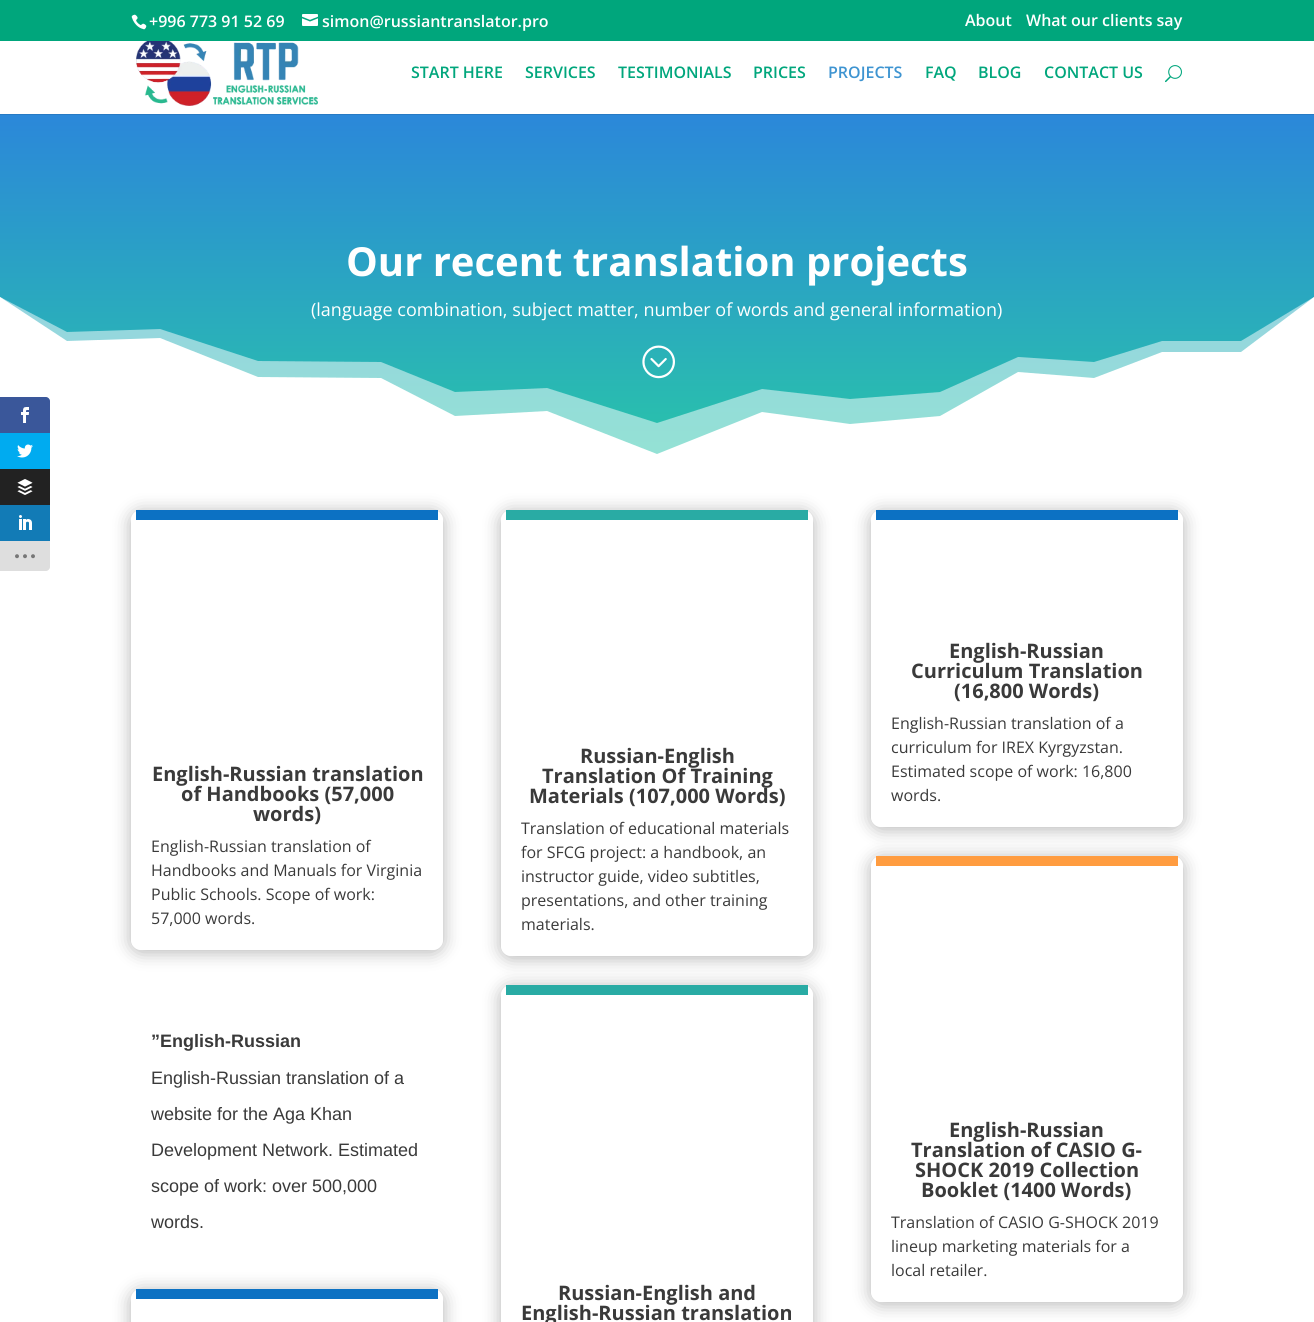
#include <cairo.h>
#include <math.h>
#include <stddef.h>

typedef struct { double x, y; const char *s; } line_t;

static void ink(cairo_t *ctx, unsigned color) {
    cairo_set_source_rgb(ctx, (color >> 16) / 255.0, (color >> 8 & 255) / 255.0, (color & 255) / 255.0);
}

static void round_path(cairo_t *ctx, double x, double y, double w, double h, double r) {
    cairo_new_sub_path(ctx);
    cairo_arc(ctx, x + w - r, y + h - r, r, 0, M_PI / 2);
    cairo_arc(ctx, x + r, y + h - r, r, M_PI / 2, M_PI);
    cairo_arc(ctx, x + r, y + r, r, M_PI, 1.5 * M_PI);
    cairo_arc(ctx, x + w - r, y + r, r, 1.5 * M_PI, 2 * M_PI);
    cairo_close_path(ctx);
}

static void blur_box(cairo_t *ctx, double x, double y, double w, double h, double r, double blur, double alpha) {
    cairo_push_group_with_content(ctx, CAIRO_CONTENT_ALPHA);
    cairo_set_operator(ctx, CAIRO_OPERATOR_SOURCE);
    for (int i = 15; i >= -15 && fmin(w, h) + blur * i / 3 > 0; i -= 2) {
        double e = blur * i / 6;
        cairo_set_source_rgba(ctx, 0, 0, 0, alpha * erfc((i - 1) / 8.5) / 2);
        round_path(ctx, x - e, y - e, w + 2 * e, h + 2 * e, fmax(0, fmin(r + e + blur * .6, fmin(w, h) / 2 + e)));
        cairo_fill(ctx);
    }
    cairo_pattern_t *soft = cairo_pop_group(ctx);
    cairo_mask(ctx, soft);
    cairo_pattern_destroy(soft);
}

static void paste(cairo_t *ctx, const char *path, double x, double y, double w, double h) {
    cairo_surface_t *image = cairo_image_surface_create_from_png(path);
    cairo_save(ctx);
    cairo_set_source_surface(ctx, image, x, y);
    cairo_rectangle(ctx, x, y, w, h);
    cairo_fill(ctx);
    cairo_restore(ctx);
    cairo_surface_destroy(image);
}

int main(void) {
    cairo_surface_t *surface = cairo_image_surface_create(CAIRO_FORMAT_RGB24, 1314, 1322);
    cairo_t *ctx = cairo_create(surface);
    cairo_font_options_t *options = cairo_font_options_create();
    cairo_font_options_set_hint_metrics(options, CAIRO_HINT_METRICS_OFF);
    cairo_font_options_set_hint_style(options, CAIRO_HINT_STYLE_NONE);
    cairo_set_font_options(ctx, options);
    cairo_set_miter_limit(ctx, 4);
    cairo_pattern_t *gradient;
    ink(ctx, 0xFFFFFF);
    cairo_paint(ctx);
    gradient = cairo_pattern_create_linear(657, 111, 657, 457);
    cairo_pattern_add_color_stop_rgba(gradient, 0, 0.169, 0.529, 0.855, 1);
    cairo_pattern_add_color_stop_rgba(gradient, 1, 0.161, 0.769, 0.663, 1);
    cairo_set_source(ctx, gradient);
    cairo_pattern_destroy(gradient);
    cairo_rectangle(ctx, 0, 115, 1314, 339);
    cairo_fill(ctx);
    cairo_select_font_face(ctx, "Open Sans", CAIRO_FONT_SLANT_NORMAL, CAIRO_FONT_WEIGHT_NORMAL);
    cairo_set_font_size(ctx, 18);
    ink(ctx, 0xFFFFFF);
    cairo_move_to(ctx, 311, 316);
    cairo_show_text(ctx, "(language combination, subject matter, number of words and general information)");
    paste(ctx, "media/10.png", 642, 345, 33, 34);
    cairo_set_source_rgba(ctx, 1, 1, 1, 0.5);
    cairo_new_path(ctx);
    cairo_move_to(ctx, 0, 297);
    cairo_line_to(ctx, 67, 332);
    cairo_line_to(ctx, 160, 329);
    cairo_line_to(ctx, 258, 361);
    cairo_line_to(ctx, 381, 362);
    cairo_line_to(ctx, 455, 392);
    cairo_line_to(ctx, 547, 388);
    cairo_line_to(ctx, 657, 423);
    cairo_line_to(ctx, 762, 389);
    cairo_line_to(ctx, 850, 399);
    cairo_line_to(ctx, 940, 392);
    cairo_line_to(ctx, 1018, 357);
    cairo_line_to(ctx, 1094, 362);
    cairo_line_to(ctx, 1162, 341);
    cairo_line_to(ctx, 1241, 341);
    cairo_line_to(ctx, 1314, 297);
    cairo_line_to(ctx, 1314, 457);
    cairo_line_to(ctx, 0, 457);
    cairo_close_path(ctx);
    cairo_fill(ctx);
    ink(ctx, 0xFFFFFF);
    cairo_new_path(ctx);
    cairo_move_to(ctx, 0, 297);
    cairo_line_to(ctx, 67, 341);
    cairo_line_to(ctx, 160, 338);
    cairo_line_to(ctx, 258, 377);
    cairo_line_to(ctx, 381, 378);
    cairo_line_to(ctx, 455, 416);
    cairo_line_to(ctx, 547, 411);
    cairo_line_to(ctx, 657, 454);
    cairo_line_to(ctx, 762, 412);
    cairo_line_to(ctx, 850, 424);
    cairo_line_to(ctx, 940, 416);
    cairo_line_to(ctx, 1018, 372);
    cairo_line_to(ctx, 1094, 378);
    cairo_line_to(ctx, 1162, 352);
    cairo_line_to(ctx, 1241, 352);
    cairo_line_to(ctx, 1314, 297);
    cairo_line_to(ctx, 1314, 457);
    cairo_line_to(ctx, 0, 457);
    cairo_close_path(ctx);
    cairo_fill(ctx);
    ink(ctx, 0x3A579A);
    cairo_new_path(ctx);
    cairo_move_to(ctx, 0, 397);
    cairo_line_to(ctx, 46, 397);
    cairo_curve_to(ctx, 48, 397, 50, 399, 50, 401);
    cairo_line_to(ctx, 50, 433);
    cairo_line_to(ctx, 0, 433);
    cairo_close_path(ctx);
    cairo_fill(ctx);
    paste(ctx, "media/1.png", 21, 407, 8, 16);
    ink(ctx, 0x00ABF0);
    cairo_rectangle(ctx, 0, 433, 50, 36);
    cairo_fill(ctx);
    paste(ctx, "media/2.png", 17, 444, 16, 14);
    ink(ctx, 0x222222);
    cairo_rectangle(ctx, 0, 469, 50, 36);
    cairo_fill(ctx);
    paste(ctx, "media/3.png", 17, 479, 16, 16);
    ink(ctx, 0x127BB6);
    cairo_rectangle(ctx, 0, 505, 50, 36);
    cairo_fill(ctx);
    paste(ctx, "media/4.png", 19, 515, 13, 15);
    ink(ctx, 0xDEDEDE);
    cairo_new_path(ctx);
    cairo_move_to(ctx, 0, 541);
    cairo_line_to(ctx, 50, 541);
    cairo_line_to(ctx, 50, 567);
    cairo_curve_to(ctx, 50, 569, 48, 571, 46, 571);
    cairo_line_to(ctx, 0, 571);
    cairo_close_path(ctx);
    cairo_fill(ctx);
    paste(ctx, "media/5.png", 15, 554, 20, 5);
    ink(ctx, 0x00A67C);
    cairo_rectangle(ctx, 0, 0, 1314, 41);
    cairo_fill(ctx);
    paste(ctx, "media/6.png", 131, 14, 16, 16);
    cairo_select_font_face(ctx, "Open Sans SemiBold", CAIRO_FONT_SLANT_NORMAL, CAIRO_FONT_WEIGHT_NORMAL);
    cairo_set_font_size(ctx, 16);
    ink(ctx, 0xFFFFFF);
    cairo_move_to(ctx, 149, 27);
    cairo_show_text(ctx, "+996 773 91 52 69");
    paste(ctx, "media/7.png", 302, 14, 16, 12);
    {
        static const line_t items[] = {
            {322, 27, "simon@russiantranslator.pro"},
            {965, 26, "About"},
            {1026, 26, "What our clients say"},
        };
        for (size_t i = 0; i < sizeof items / sizeof *items; i++) {
            cairo_move_to(ctx, items[i].x, items[i].y);
            cairo_show_text(ctx, items[i].s);
        }
    }
    ink(ctx, 0x277AC4);
    cairo_rectangle(ctx, 0, 114, 1314, 1);
    cairo_fill(ctx);
    paste(ctx, "media/8.png", 136, 41, 182, 65);
    ink(ctx, 0x00A67C);
    {
        static const line_t items[] = {
            {411, 78, "START HERE"},
            {525, 78, "SERVICES"},
            {618, 78, "TESTIMONIALS"},
            {753, 78, "PRICES"},
        };
        for (size_t i = 0; i < sizeof items / sizeof *items; i++) {
            cairo_move_to(ctx, items[i].x, items[i].y);
            cairo_show_text(ctx, items[i].s);
        }
    }
    ink(ctx, 0x3E94D1);
    cairo_move_to(ctx, 828, 78);
    cairo_show_text(ctx, "PROJECTS");
    ink(ctx, 0x00A67C);
    {
        static const line_t items[] = {
            {925, 78, "FAQ"},
            {978, 78, "BLOG"},
            {1044, 78, "CONTACT US"},
        };
        for (size_t i = 0; i < sizeof items / sizeof *items; i++) {
            cairo_move_to(ctx, items[i].x, items[i].y);
            cairo_show_text(ctx, items[i].s);
        }
    }
    paste(ctx, "media/9.png", 1165, 65, 17, 18);
    cairo_select_font_face(ctx, "Open Sans", CAIRO_FONT_SLANT_NORMAL, CAIRO_FONT_WEIGHT_BOLD);
    cairo_set_font_size(ctx, 40);
    ink(ctx, 0xFFFFFF);
    cairo_move_to(ctx, 346, 276);
    cairo_show_text(ctx, "Our recent translation projects");
    cairo_save(ctx);
    cairo_set_fill_rule(ctx, CAIRO_FILL_RULE_EVEN_ODD);
    cairo_new_path(ctx);
    cairo_move_to(ctx, 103, 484);
    cairo_line_to(ctx, 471, 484);
    cairo_line_to(ctx, 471, 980);
    cairo_line_to(ctx, 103, 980);
    cairo_close_path(ctx);
    cairo_move_to(ctx, 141, 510);
    cairo_line_to(ctx, 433, 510);
    cairo_curve_to(ctx, 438.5, 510, 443, 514.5, 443, 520);
    cairo_line_to(ctx, 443, 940);
    cairo_curve_to(ctx, 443, 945.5, 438.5, 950, 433, 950);
    cairo_line_to(ctx, 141, 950);
    cairo_curve_to(ctx, 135.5, 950, 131, 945.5, 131, 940);
    cairo_line_to(ctx, 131, 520);
    cairo_curve_to(ctx, 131, 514.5, 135.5, 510, 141, 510);
    cairo_close_path(ctx);
    cairo_clip(ctx);
    ink(ctx, 0x000000);
    blur_box(ctx, 131, 512, 312, 440, 10, 9, 0.3);
    cairo_restore(ctx);
    ink(ctx, 0x0C71C3);
    cairo_rectangle(ctx, 136, 510, 302, 10);
    cairo_fill(ctx);
    cairo_set_font_size(ctx, 20);
    ink(ctx, 0x3A3A3A);
    {
        static const line_t items[] = {
            {152, 781, "English-Russian translation"},
            {181, 801, "of Handbooks (57,000"},
            {253, 821, "words)"},
        };
        for (size_t i = 0; i < sizeof items / sizeof *items; i++) {
            cairo_move_to(ctx, items[i].x, items[i].y);
            cairo_show_text(ctx, items[i].s);
        }
    }
    cairo_select_font_face(ctx, "Open Sans", CAIRO_FONT_SLANT_NORMAL, CAIRO_FONT_WEIGHT_NORMAL);
    cairo_set_font_size(ctx, 16);
    {
        static const line_t items[] = {
            {151, 852, "English-Russian translation of"},
            {151, 876, "Handbooks and Manuals for Virginia"},
            {151, 900, "Public Schools. Scope of work:"},
            {151, 924, "57,000 words."},
        };
        for (size_t i = 0; i < sizeof items / sizeof *items; i++) {
            cairo_move_to(ctx, items[i].x, items[i].y);
            cairo_show_text(ctx, items[i].s);
        }
    }
    cairo_select_font_face(ctx, "Liberation Sans", CAIRO_FONT_SLANT_NORMAL, CAIRO_FONT_WEIGHT_BOLD);
    cairo_set_font_size(ctx, 18);
    cairo_move_to(ctx, 151, 1047);
    cairo_show_text(ctx, "”English-Russian");
    cairo_select_font_face(ctx, "Liberation Sans", CAIRO_FONT_SLANT_NORMAL, CAIRO_FONT_WEIGHT_NORMAL);
    {
        static const line_t items[] = {
            {151, 1084, "English-Russian translation of a"},
            {151, 1120, "website for the Aga Khan"},
            {151, 1156, "Development Network. Estimated"},
            {151, 1192, "scope of work: over 500,000"},
            {151, 1228, "words."},
        };
        for (size_t i = 0; i < sizeof items / sizeof *items; i++) {
            cairo_move_to(ctx, items[i].x, items[i].y);
            cairo_show_text(ctx, items[i].s);
        }
    }
    cairo_save(ctx);
    cairo_set_fill_rule(ctx, CAIRO_FILL_RULE_EVEN_ODD);
    cairo_new_path(ctx);
    cairo_move_to(ctx, 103, 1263);
    cairo_line_to(ctx, 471, 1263);
    cairo_line_to(ctx, 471, 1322);
    cairo_line_to(ctx, 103, 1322);
    cairo_close_path(ctx);
    cairo_move_to(ctx, 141, 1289);
    cairo_line_to(ctx, 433, 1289);
    cairo_curve_to(ctx, 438.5, 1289, 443, 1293.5, 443, 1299);
    cairo_line_to(ctx, 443, 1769);
    cairo_curve_to(ctx, 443, 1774.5, 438.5, 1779, 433, 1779);
    cairo_line_to(ctx, 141, 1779);
    cairo_curve_to(ctx, 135.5, 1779, 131, 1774.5, 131, 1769);
    cairo_line_to(ctx, 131, 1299);
    cairo_curve_to(ctx, 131, 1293.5, 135.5, 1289, 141, 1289);
    cairo_close_path(ctx);
    cairo_clip(ctx);
    ink(ctx, 0x000000);
    blur_box(ctx, 131, 1291, 312, 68, 10, 9, 0.3);
    cairo_restore(ctx);
    ink(ctx, 0x0C71C3);
    cairo_rectangle(ctx, 136, 1289, 302, 10);
    cairo_fill(ctx);
    cairo_save(ctx);
    cairo_set_fill_rule(ctx, CAIRO_FILL_RULE_EVEN_ODD);
    cairo_new_path(ctx);
    cairo_move_to(ctx, 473, 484);
    cairo_line_to(ctx, 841, 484);
    cairo_line_to(ctx, 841, 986);
    cairo_line_to(ctx, 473, 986);
    cairo_close_path(ctx);
    cairo_move_to(ctx, 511, 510);
    cairo_line_to(ctx, 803, 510);
    cairo_curve_to(ctx, 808.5, 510, 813, 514.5, 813, 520);
    cairo_line_to(ctx, 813, 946);
    cairo_curve_to(ctx, 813, 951.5, 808.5, 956, 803, 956);
    cairo_line_to(ctx, 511, 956);
    cairo_curve_to(ctx, 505.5, 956, 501, 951.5, 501, 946);
    cairo_line_to(ctx, 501, 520);
    cairo_curve_to(ctx, 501, 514.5, 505.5, 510, 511, 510);
    cairo_close_path(ctx);
    cairo_clip(ctx);
    ink(ctx, 0x000000);
    blur_box(ctx, 501, 512, 312, 446, 10, 9, 0.3);
    cairo_restore(ctx);
    ink(ctx, 0x29ABA4);
    cairo_rectangle(ctx, 506, 510, 302, 10);
    cairo_fill(ctx);
    cairo_select_font_face(ctx, "Open Sans", CAIRO_FONT_SLANT_NORMAL, CAIRO_FONT_WEIGHT_BOLD);
    cairo_set_font_size(ctx, 20);
    ink(ctx, 0x3A3A3A);
    {
        static const line_t items[] = {
            {580, 763, "Russian-English"},
            {542, 783, "Translation Of Training"},
            {529, 803, "Materials (107,000 Words)"},
        };
        for (size_t i = 0; i < sizeof items / sizeof *items; i++) {
            cairo_move_to(ctx, items[i].x, items[i].y);
            cairo_show_text(ctx, items[i].s);
        }
    }
    cairo_select_font_face(ctx, "Open Sans", CAIRO_FONT_SLANT_NORMAL, CAIRO_FONT_WEIGHT_NORMAL);
    cairo_set_font_size(ctx, 16);
    {
        static const line_t items[] = {
            {521, 834, "Translation of educational materials"},
            {521, 858, "for SFCG project: a handbook, an"},
            {521, 882, "instructor guide, video subtitles,"},
            {521, 906, "presentations, and other training"},
            {521, 930, "materials."},
        };
        for (size_t i = 0; i < sizeof items / sizeof *items; i++) {
            cairo_move_to(ctx, items[i].x, items[i].y);
            cairo_show_text(ctx, items[i].s);
        }
    }
    cairo_save(ctx);
    cairo_set_fill_rule(ctx, CAIRO_FILL_RULE_EVEN_ODD);
    cairo_new_path(ctx);
    cairo_move_to(ctx, 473, 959);
    cairo_line_to(ctx, 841, 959);
    cairo_line_to(ctx, 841, 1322);
    cairo_line_to(ctx, 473, 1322);
    cairo_close_path(ctx);
    cairo_move_to(ctx, 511, 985);
    cairo_line_to(ctx, 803, 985);
    cairo_curve_to(ctx, 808.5, 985, 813, 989.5, 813, 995);
    cairo_line_to(ctx, 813, 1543);
    cairo_curve_to(ctx, 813, 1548.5, 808.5, 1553, 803, 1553);
    cairo_line_to(ctx, 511, 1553);
    cairo_curve_to(ctx, 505.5, 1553, 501, 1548.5, 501, 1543);
    cairo_line_to(ctx, 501, 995);
    cairo_curve_to(ctx, 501, 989.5, 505.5, 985, 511, 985);
    cairo_close_path(ctx);
    cairo_clip(ctx);
    ink(ctx, 0x000000);
    blur_box(ctx, 501, 987, 312, 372, 10, 9, 0.3);
    cairo_restore(ctx);
    ink(ctx, 0x29ABA4);
    cairo_rectangle(ctx, 506, 985, 302, 10);
    cairo_fill(ctx);
    cairo_select_font_face(ctx, "Open Sans", CAIRO_FONT_SLANT_NORMAL, CAIRO_FONT_WEIGHT_BOLD);
    cairo_set_font_size(ctx, 20);
    ink(ctx, 0x3A3A3A);
    cairo_move_to(ctx, 558, 1300);
    cairo_show_text(ctx, "Russian-English and");
    cairo_move_to(ctx, 521, 1320);
    cairo_show_text(ctx, "English-Russian translation");
    cairo_save(ctx);
    cairo_set_fill_rule(ctx, CAIRO_FILL_RULE_EVEN_ODD);
    cairo_new_path(ctx);
    cairo_move_to(ctx, 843, 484);
    cairo_line_to(ctx, 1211, 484);
    cairo_line_to(ctx, 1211, 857);
    cairo_line_to(ctx, 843, 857);
    cairo_close_path(ctx);
    cairo_move_to(ctx, 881, 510);
    cairo_line_to(ctx, 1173, 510);
    cairo_curve_to(ctx, 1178.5, 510, 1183, 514.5, 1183, 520);
    cairo_line_to(ctx, 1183, 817);
    cairo_curve_to(ctx, 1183, 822.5, 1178.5, 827, 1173, 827);
    cairo_line_to(ctx, 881, 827);
    cairo_curve_to(ctx, 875.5, 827, 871, 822.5, 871, 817);
    cairo_line_to(ctx, 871, 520);
    cairo_curve_to(ctx, 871, 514.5, 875.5, 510, 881, 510);
    cairo_close_path(ctx);
    cairo_clip(ctx);
    ink(ctx, 0x000000);
    blur_box(ctx, 871, 512, 312, 317, 10, 9, 0.3);
    cairo_restore(ctx);
    ink(ctx, 0x0C71C3);
    cairo_rectangle(ctx, 876, 510, 302, 10);
    cairo_fill(ctx);
    ink(ctx, 0x3A3A3A);
    {
        static const line_t items[] = {
            {949, 658, "English-Russian"},
            {911, 678, "Curriculum Translation"},
            {954, 698, "(16,800 Words)"},
        };
        for (size_t i = 0; i < sizeof items / sizeof *items; i++) {
            cairo_move_to(ctx, items[i].x, items[i].y);
            cairo_show_text(ctx, items[i].s);
        }
    }
    cairo_select_font_face(ctx, "Open Sans", CAIRO_FONT_SLANT_NORMAL, CAIRO_FONT_WEIGHT_NORMAL);
    cairo_set_font_size(ctx, 16);
    {
        static const line_t items[] = {
            {891, 729, "English-Russian translation of a"},
            {891, 753, "curriculum for IREX Kyrgyzstan."},
            {891, 777, "Estimated scope of work: 16,800"},
            {891, 801, "words."},
        };
        for (size_t i = 0; i < sizeof items / sizeof *items; i++) {
            cairo_move_to(ctx, items[i].x, items[i].y);
            cairo_show_text(ctx, items[i].s);
        }
    }
    cairo_save(ctx);
    cairo_set_fill_rule(ctx, CAIRO_FILL_RULE_EVEN_ODD);
    cairo_new_path(ctx);
    cairo_move_to(ctx, 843, 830);
    cairo_line_to(ctx, 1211, 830);
    cairo_line_to(ctx, 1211, 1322);
    cairo_line_to(ctx, 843, 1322);
    cairo_close_path(ctx);
    cairo_move_to(ctx, 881, 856);
    cairo_line_to(ctx, 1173, 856);
    cairo_curve_to(ctx, 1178.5, 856, 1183, 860.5, 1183, 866);
    cairo_line_to(ctx, 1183, 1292);
    cairo_curve_to(ctx, 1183, 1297.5, 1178.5, 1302, 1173, 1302);
    cairo_line_to(ctx, 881, 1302);
    cairo_curve_to(ctx, 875.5, 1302, 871, 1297.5, 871, 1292);
    cairo_line_to(ctx, 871, 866);
    cairo_curve_to(ctx, 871, 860.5, 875.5, 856, 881, 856);
    cairo_close_path(ctx);
    cairo_clip(ctx);
    ink(ctx, 0x000000);
    blur_box(ctx, 871, 858, 312, 446, 10, 9, 0.3);
    cairo_restore(ctx);
    ink(ctx, 0xFF9C40);
    cairo_rectangle(ctx, 876, 856, 302, 10);
    cairo_fill(ctx);
    cairo_select_font_face(ctx, "Open Sans", CAIRO_FONT_SLANT_NORMAL, CAIRO_FONT_WEIGHT_BOLD);
    cairo_set_font_size(ctx, 20);
    ink(ctx, 0x3A3A3A);
    {
        static const line_t items[] = {
            {949, 1137, "English-Russian"},
            {911, 1157, "Translation of CASIO G-"},
            {915, 1177, "SHOCK 2019 Collection"},
            {921, 1197, "Booklet (1400 Words)"},
        };
        for (size_t i = 0; i < sizeof items / sizeof *items; i++) {
            cairo_move_to(ctx, items[i].x, items[i].y);
            cairo_show_text(ctx, items[i].s);
        }
    }
    cairo_select_font_face(ctx, "Open Sans", CAIRO_FONT_SLANT_NORMAL, CAIRO_FONT_WEIGHT_NORMAL);
    cairo_set_font_size(ctx, 16);
    {
        static const line_t items[] = {
            {891, 1228, "Translation of CASIO G-SHOCK 2019"},
            {891, 1252, "lineup marketing materials for a"},
            {891, 1276, "local retailer."},
        };
        for (size_t i = 0; i < sizeof items / sizeof *items; i++) {
            cairo_move_to(ctx, items[i].x, items[i].y);
            cairo_show_text(ctx, items[i].s);
        }
    }
    cairo_surface_write_to_png(surface, "image.png");
    cairo_font_options_destroy(options);
    cairo_destroy(ctx);
    cairo_surface_destroy(surface);
    return 0;
}
